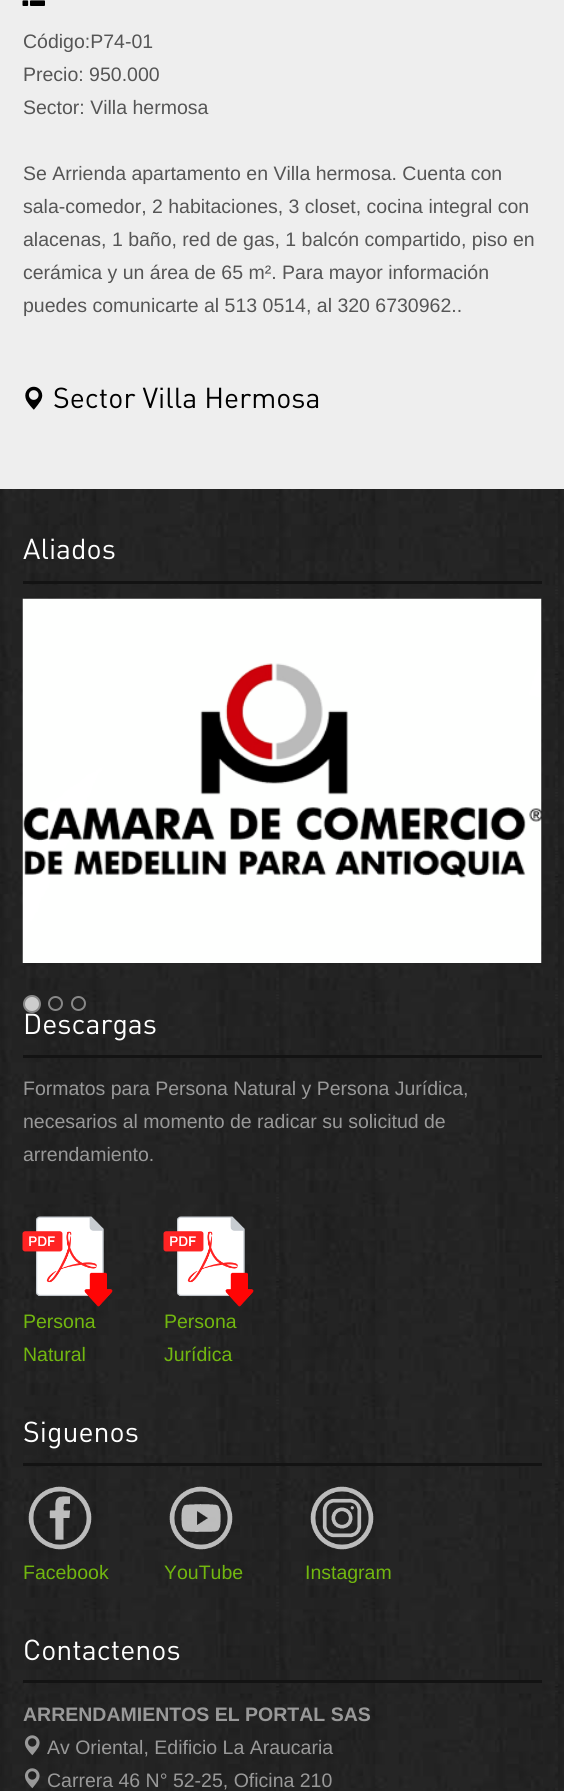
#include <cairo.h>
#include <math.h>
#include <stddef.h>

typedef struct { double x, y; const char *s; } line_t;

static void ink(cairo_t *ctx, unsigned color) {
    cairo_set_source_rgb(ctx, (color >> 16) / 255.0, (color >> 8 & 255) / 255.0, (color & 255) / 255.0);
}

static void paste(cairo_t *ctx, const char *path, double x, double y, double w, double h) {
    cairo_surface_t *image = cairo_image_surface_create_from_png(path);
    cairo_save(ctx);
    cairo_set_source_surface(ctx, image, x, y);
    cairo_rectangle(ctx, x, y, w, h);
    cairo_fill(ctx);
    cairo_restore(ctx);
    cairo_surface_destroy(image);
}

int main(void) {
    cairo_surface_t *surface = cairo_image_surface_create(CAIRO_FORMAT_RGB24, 564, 1791);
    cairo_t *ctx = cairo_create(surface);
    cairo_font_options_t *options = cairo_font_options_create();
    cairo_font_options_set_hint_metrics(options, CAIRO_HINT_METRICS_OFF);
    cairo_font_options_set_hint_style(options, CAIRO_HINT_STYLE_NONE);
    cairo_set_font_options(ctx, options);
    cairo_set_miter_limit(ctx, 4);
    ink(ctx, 0xEEEEEE);
    cairo_paint(ctx);
    paste(ctx, "media/1.png", 22, 0, 23, 6);
    cairo_select_font_face(ctx, "Liberation Sans", CAIRO_FONT_SLANT_NORMAL, CAIRO_FONT_WEIGHT_NORMAL);
    cairo_set_font_size(ctx, 19.5);
    ink(ctx, 0x555555);
    {
        static const line_t items[] = {
            {23, 48, "Código:P74-01"},
            {23, 81, "Precio: 950.000"},
            {23, 114, "Sector: Villa hermosa"},
            {23, 180, "Se Arrienda apartamento en Villa hermosa. Cuenta con"},
            {23, 213, "sala-comedor, 2 habitaciones, 3 closet, cocina integral con"},
            {23, 246, "alacenas, 1 baño, red de gas, 1 balcón compartido, piso en"},
            {23, 279, "cerámica y un área de 65 m². Para mayor información"},
            {23, 312, "puedes comunicarte al 513 0514, al 320 6730962.."},
        };
        for (size_t i = 0; i < sizeof items / sizeof *items; i++) {
            cairo_move_to(ctx, items[i].x, items[i].y);
            cairo_show_text(ctx, items[i].s);
        }
    }
    paste(ctx, "media/2.png", 25, 386, 18, 24);
    cairo_select_font_face(ctx, "DIN", CAIRO_FONT_SLANT_NORMAL, CAIRO_FONT_WEIGHT_NORMAL);
    cairo_set_font_size(ctx, 28.5);
    ink(ctx, 0x000000);
    cairo_move_to(ctx, 53, 408);
    cairo_show_text(ctx, "Sector Villa Hermosa");
    paste(ctx, "media/3.png", 0, 489, 564, 1302);
    ink(ctx, 0x131313);
    cairo_rectangle(ctx, 23, 581, 519, 3);
    cairo_fill(ctx);
    ink(ctx, 0xFFFFFF);
    cairo_move_to(ctx, 23, 559);
    cairo_show_text(ctx, "Aliados");
    paste(ctx, "media/4.png", 22, 598, 520, 365);
    ink(ctx, 0xCCCCCC);
    cairo_arc(ctx, 32, 1004, 8, 0, 2 * M_PI);
    cairo_fill_preserve(ctx);
    ink(ctx, 0x888888);
    cairo_stroke(ctx);
    cairo_arc(ctx, 55.5, 1003.5, 6.5, 0, 2 * M_PI);
    cairo_stroke(ctx);
    cairo_arc(ctx, 78.5, 1003.5, 6.5, 0, 2 * M_PI);
    cairo_stroke(ctx);
    ink(ctx, 0x131313);
    cairo_rectangle(ctx, 23, 1055, 519, 3);
    cairo_fill(ctx);
    ink(ctx, 0xFFFFFF);
    cairo_move_to(ctx, 23, 1034);
    cairo_show_text(ctx, "Descargas");
    cairo_select_font_face(ctx, "Liberation Sans", CAIRO_FONT_SLANT_NORMAL, CAIRO_FONT_WEIGHT_NORMAL);
    cairo_set_font_size(ctx, 19.5);
    ink(ctx, 0x999999);
    {
        static const line_t items[] = {
            {23, 1095, "Formatos para Persona Natural y Persona Jurídica,"},
            {23, 1128, "necesarios al momento de radicar su solicitud de"},
            {23, 1161, "arrendamiento."},
        };
        for (size_t i = 0; i < sizeof items / sizeof *items; i++) {
            cairo_move_to(ctx, items[i].x, items[i].y);
            cairo_show_text(ctx, items[i].s);
        }
    }
    paste(ctx, "media/5.png", 22, 1216, 91, 91);
    ink(ctx, 0x72B70F);
    cairo_move_to(ctx, 23, 1328);
    cairo_show_text(ctx, "Persona");
    cairo_move_to(ctx, 23, 1361);
    cairo_show_text(ctx, "Natural");
    paste(ctx, "media/6.png", 163, 1216, 91, 91);
    cairo_move_to(ctx, 164, 1328);
    cairo_show_text(ctx, "Persona");
    cairo_move_to(ctx, 164, 1361);
    cairo_show_text(ctx, "Jurídica");
    ink(ctx, 0x131313);
    cairo_rectangle(ctx, 23, 1463, 519, 3);
    cairo_fill(ctx);
    cairo_select_font_face(ctx, "DIN", CAIRO_FONT_SLANT_NORMAL, CAIRO_FONT_WEIGHT_NORMAL);
    cairo_set_font_size(ctx, 28.5);
    ink(ctx, 0xFFFFFF);
    cairo_move_to(ctx, 23, 1442);
    cairo_show_text(ctx, "Siguenos");
    paste(ctx, "media/7.png", 28, 1486, 64, 64);
    cairo_select_font_face(ctx, "Liberation Sans", CAIRO_FONT_SLANT_NORMAL, CAIRO_FONT_WEIGHT_NORMAL);
    cairo_set_font_size(ctx, 19.5);
    ink(ctx, 0x72B70F);
    cairo_move_to(ctx, 23, 1579);
    cairo_show_text(ctx, "Facebook");
    paste(ctx, "media/8.png", 169, 1486, 64, 64);
    cairo_move_to(ctx, 164, 1579);
    cairo_show_text(ctx, "YouTube");
    paste(ctx, "media/9.png", 310, 1486, 64, 64);
    cairo_move_to(ctx, 305, 1579);
    cairo_show_text(ctx, "Instagram");
    ink(ctx, 0x131313);
    cairo_rectangle(ctx, 23, 1680, 519, 3);
    cairo_fill(ctx);
    cairo_select_font_face(ctx, "DIN", CAIRO_FONT_SLANT_NORMAL, CAIRO_FONT_WEIGHT_NORMAL);
    cairo_set_font_size(ctx, 28.5);
    ink(ctx, 0xFFFFFF);
    cairo_move_to(ctx, 23, 1660);
    cairo_show_text(ctx, "Contactenos");
    cairo_select_font_face(ctx, "Liberation Sans", CAIRO_FONT_SLANT_NORMAL, CAIRO_FONT_WEIGHT_BOLD);
    cairo_set_font_size(ctx, 19.5);
    ink(ctx, 0x999999);
    cairo_move_to(ctx, 23, 1721);
    cairo_show_text(ctx, "ARRENDAMIENTOS EL PORTAL SAS");
    paste(ctx, "media/10.png", 24, 1735, 16, 21);
    cairo_select_font_face(ctx, "Liberation Sans", CAIRO_FONT_SLANT_NORMAL, CAIRO_FONT_WEIGHT_NORMAL);
    cairo_move_to(ctx, 47, 1754);
    cairo_show_text(ctx, "Av Oriental, Edificio La Araucaria");
    paste(ctx, "media/11.png", 24, 1768, 16, 21);
    cairo_move_to(ctx, 47, 1787);
    cairo_show_text(ctx, "Carrera 46 N° 52-25, Oficina 210");
    cairo_surface_write_to_png(surface, "image.png");
    cairo_font_options_destroy(options);
    cairo_destroy(ctx);
    cairo_surface_destroy(surface);
    return 0;
}
